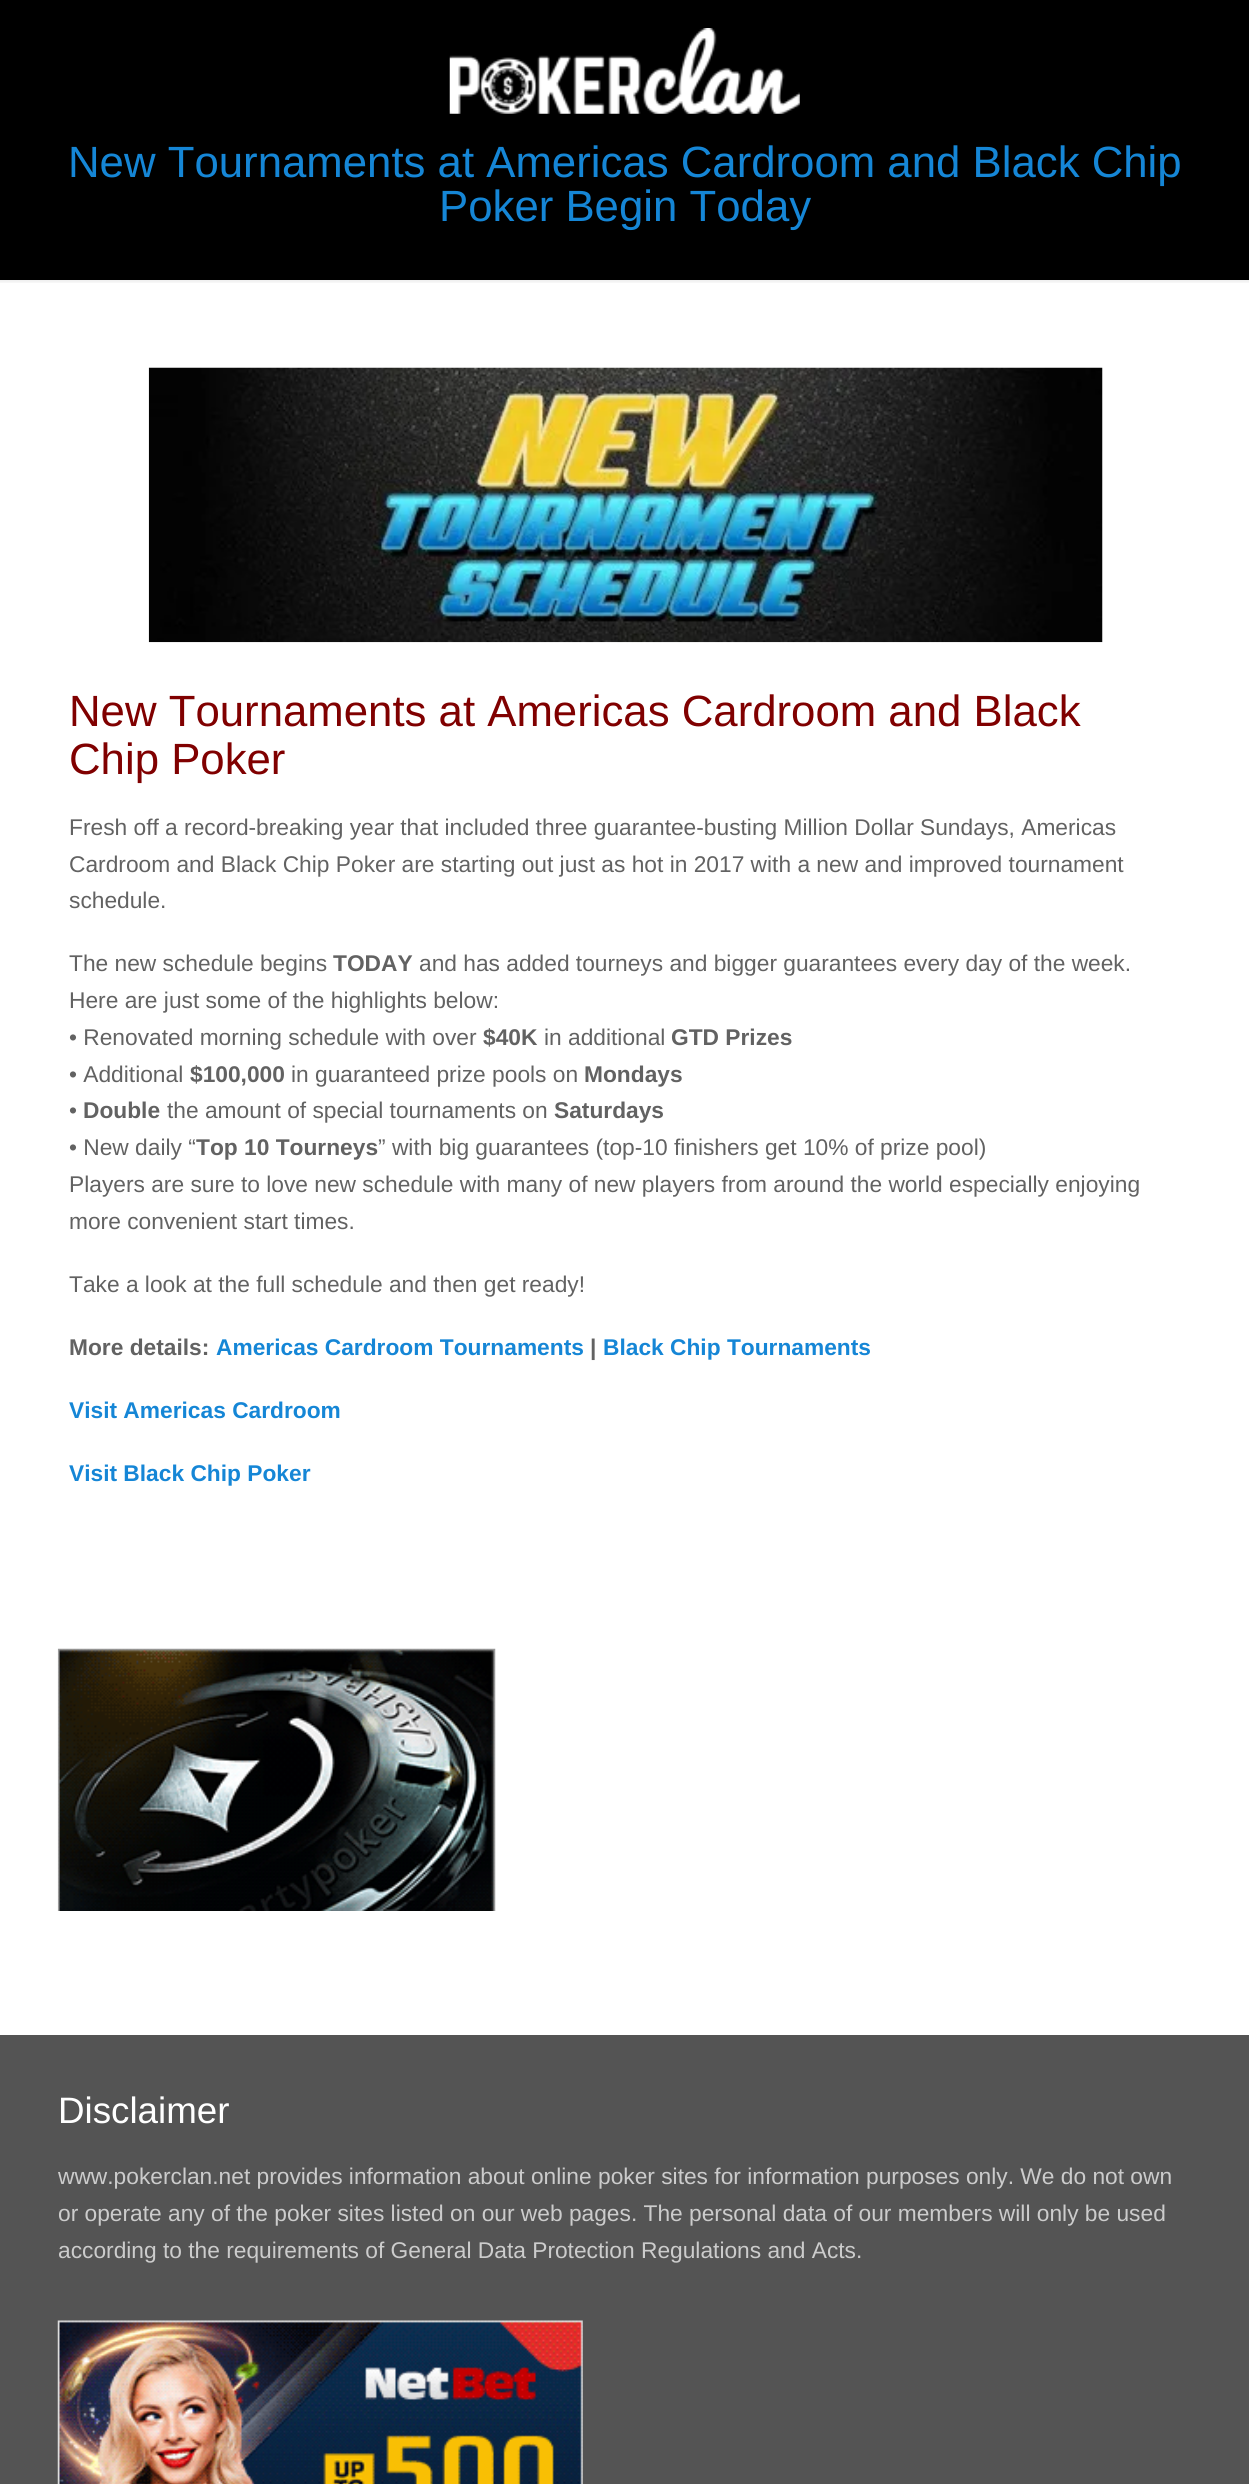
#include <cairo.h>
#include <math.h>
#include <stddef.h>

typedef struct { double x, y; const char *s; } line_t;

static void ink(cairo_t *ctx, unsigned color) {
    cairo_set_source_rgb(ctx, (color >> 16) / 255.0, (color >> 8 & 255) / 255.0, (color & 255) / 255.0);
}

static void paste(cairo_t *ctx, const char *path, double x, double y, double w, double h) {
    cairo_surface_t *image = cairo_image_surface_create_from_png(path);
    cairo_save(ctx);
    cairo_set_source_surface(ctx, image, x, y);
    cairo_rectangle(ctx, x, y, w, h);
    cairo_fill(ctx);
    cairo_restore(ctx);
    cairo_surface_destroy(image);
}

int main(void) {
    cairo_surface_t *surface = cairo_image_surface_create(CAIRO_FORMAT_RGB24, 1249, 2484);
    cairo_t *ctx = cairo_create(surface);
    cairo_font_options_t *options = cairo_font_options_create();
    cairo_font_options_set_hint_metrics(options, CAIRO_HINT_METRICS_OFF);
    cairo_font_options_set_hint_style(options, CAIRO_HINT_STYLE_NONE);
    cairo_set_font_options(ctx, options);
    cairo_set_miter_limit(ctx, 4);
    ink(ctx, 0xFFFFFF);
    cairo_paint(ctx);
    ink(ctx, 0x000000);
    cairo_rectangle(ctx, 0, 0, 1249, 280);
    cairo_fill(ctx);
    paste(ctx, "media/1.png", 449, 28, 351, 86);
    cairo_select_font_face(ctx, "Liberation Sans", CAIRO_FONT_SLANT_NORMAL, CAIRO_FONT_WEIGHT_NORMAL);
    cairo_set_font_size(ctx, 43.75);
    ink(ctx, 0x1586D6);
    cairo_move_to(ctx, 68, 177);
    cairo_show_text(ctx, "New Tournaments at Americas Cardroom and Black Chip");
    cairo_move_to(ctx, 439, 221);
    cairo_show_text(ctx, "Poker Begin Today");
    paste(ctx, "media/2.png", 0, 280, 1249, 3);
    paste(ctx, "media/3.png", 148, 367, 955, 276);
    ink(ctx, 0x800000);
    cairo_move_to(ctx, 69, 726);
    cairo_show_text(ctx, "New Tournaments at Americas Cardroom and Black");
    cairo_move_to(ctx, 69, 774);
    cairo_show_text(ctx, "Chip Poker");
    cairo_set_font_size(ctx, 22.75);
    ink(ctx, 0x626262);
    {
        static const line_t items[] = {
            {69, 835, "Fresh off a record-breaking year that included three guarantee-busting Million Dollar Sundays, Americas"},
            {69, 872, "Cardroom and Black Chip Poker are starting out just as hot in 2017 with a new and improved tournament"},
            {69, 908, "schedule."},
            {69, 971, "The new schedule begins"},
        };
        for (size_t i = 0; i < sizeof items / sizeof *items; i++) {
            cairo_move_to(ctx, items[i].x, items[i].y);
            cairo_show_text(ctx, items[i].s);
        }
    }
    cairo_select_font_face(ctx, "Liberation Sans", CAIRO_FONT_SLANT_NORMAL, CAIRO_FONT_WEIGHT_BOLD);
    cairo_move_to(ctx, 333, 971);
    cairo_show_text(ctx, "TODAY");
    cairo_select_font_face(ctx, "Liberation Sans", CAIRO_FONT_SLANT_NORMAL, CAIRO_FONT_WEIGHT_NORMAL);
    {
        static const line_t items[] = {
            {419, 971, "and has added tourneys and bigger guarantees every day of the week."},
            {69, 1008, "Here are just some of the highlights below:"},
            {69, 1045, "• Renovated morning schedule with over"},
        };
        for (size_t i = 0; i < sizeof items / sizeof *items; i++) {
            cairo_move_to(ctx, items[i].x, items[i].y);
            cairo_show_text(ctx, items[i].s);
        }
    }
    cairo_select_font_face(ctx, "Liberation Sans", CAIRO_FONT_SLANT_NORMAL, CAIRO_FONT_WEIGHT_BOLD);
    cairo_move_to(ctx, 483, 1045);
    cairo_show_text(ctx, "$40K");
    cairo_select_font_face(ctx, "Liberation Sans", CAIRO_FONT_SLANT_NORMAL, CAIRO_FONT_WEIGHT_NORMAL);
    cairo_move_to(ctx, 544, 1045);
    cairo_show_text(ctx, "in additional");
    cairo_select_font_face(ctx, "Liberation Sans", CAIRO_FONT_SLANT_NORMAL, CAIRO_FONT_WEIGHT_BOLD);
    cairo_move_to(ctx, 671, 1045);
    cairo_show_text(ctx, "GTD Prizes");
    cairo_select_font_face(ctx, "Liberation Sans", CAIRO_FONT_SLANT_NORMAL, CAIRO_FONT_WEIGHT_NORMAL);
    cairo_move_to(ctx, 69, 1082);
    cairo_show_text(ctx, "• Additional");
    cairo_select_font_face(ctx, "Liberation Sans", CAIRO_FONT_SLANT_NORMAL, CAIRO_FONT_WEIGHT_BOLD);
    cairo_move_to(ctx, 190, 1082);
    cairo_show_text(ctx, "$100,000");
    cairo_select_font_face(ctx, "Liberation Sans", CAIRO_FONT_SLANT_NORMAL, CAIRO_FONT_WEIGHT_NORMAL);
    cairo_move_to(ctx, 291, 1082);
    cairo_show_text(ctx, "in guaranteed prize pools on");
    cairo_select_font_face(ctx, "Liberation Sans", CAIRO_FONT_SLANT_NORMAL, CAIRO_FONT_WEIGHT_BOLD);
    cairo_move_to(ctx, 584, 1082);
    cairo_show_text(ctx, "Mondays");
    cairo_select_font_face(ctx, "Liberation Sans", CAIRO_FONT_SLANT_NORMAL, CAIRO_FONT_WEIGHT_NORMAL);
    cairo_move_to(ctx, 69, 1118);
    cairo_show_text(ctx, "•");
    cairo_select_font_face(ctx, "Liberation Sans", CAIRO_FONT_SLANT_NORMAL, CAIRO_FONT_WEIGHT_BOLD);
    cairo_move_to(ctx, 83, 1118);
    cairo_show_text(ctx, "Double");
    cairo_select_font_face(ctx, "Liberation Sans", CAIRO_FONT_SLANT_NORMAL, CAIRO_FONT_WEIGHT_NORMAL);
    cairo_move_to(ctx, 167, 1118);
    cairo_show_text(ctx, "the amount of special tournaments on");
    cairo_select_font_face(ctx, "Liberation Sans", CAIRO_FONT_SLANT_NORMAL, CAIRO_FONT_WEIGHT_BOLD);
    cairo_move_to(ctx, 554, 1118);
    cairo_show_text(ctx, "Saturdays");
    cairo_select_font_face(ctx, "Liberation Sans", CAIRO_FONT_SLANT_NORMAL, CAIRO_FONT_WEIGHT_NORMAL);
    cairo_move_to(ctx, 69, 1155);
    cairo_show_text(ctx, "• New daily “");
    cairo_select_font_face(ctx, "Liberation Sans", CAIRO_FONT_SLANT_NORMAL, CAIRO_FONT_WEIGHT_BOLD);
    cairo_move_to(ctx, 196, 1155);
    cairo_show_text(ctx, "Top 10 Tourneys");
    cairo_select_font_face(ctx, "Liberation Sans", CAIRO_FONT_SLANT_NORMAL, CAIRO_FONT_WEIGHT_NORMAL);
    {
        static const line_t items[] = {
            {378, 1155, "” with big guarantees (top-10 finishers get 10% of prize pool)"},
            {69, 1192, "Players are sure to love new schedule with many of new players from around the world especially enjoying"},
            {69, 1229, "more convenient start times."},
            {69, 1292, "Take a look at the full schedule and then get ready!"},
        };
        for (size_t i = 0; i < sizeof items / sizeof *items; i++) {
            cairo_move_to(ctx, items[i].x, items[i].y);
            cairo_show_text(ctx, items[i].s);
        }
    }
    cairo_select_font_face(ctx, "Liberation Sans", CAIRO_FONT_SLANT_NORMAL, CAIRO_FONT_WEIGHT_BOLD);
    cairo_move_to(ctx, 69, 1355);
    cairo_show_text(ctx, "More details:");
    ink(ctx, 0x1586D6);
    cairo_move_to(ctx, 216, 1355);
    cairo_show_text(ctx, "Americas Cardroom Tournaments");
    ink(ctx, 0x626262);
    cairo_move_to(ctx, 590, 1355);
    cairo_show_text(ctx, "|");
    ink(ctx, 0x1586D6);
    {
        static const line_t items[] = {
            {603, 1355, "Black Chip Tournaments"},
            {69, 1418, "Visit Americas Cardroom"},
            {69, 1481, "Visit Black Chip Poker"},
        };
        for (size_t i = 0; i < sizeof items / sizeof *items; i++) {
            cairo_move_to(ctx, items[i].x, items[i].y);
            cairo_show_text(ctx, items[i].s);
        }
    }
    paste(ctx, "media/4.png", 57, 1648, 439, 263);
    ink(ctx, 0x545454);
    cairo_rectangle(ctx, 0, 2035, 1249, 449);
    cairo_fill(ctx);
    cairo_select_font_face(ctx, "Liberation Sans", CAIRO_FONT_SLANT_NORMAL, CAIRO_FONT_WEIGHT_NORMAL);
    cairo_set_font_size(ctx, 36.75);
    ink(ctx, 0xFFFFFF);
    cairo_move_to(ctx, 58, 2123);
    cairo_show_text(ctx, "Disclaimer");
    cairo_set_font_size(ctx, 22.75);
    ink(ctx, 0xCCCCCC);
    {
        static const line_t items[] = {
            {58, 2184, "www.pokerclan.net provides information about online poker sites for information purposes only. We do not own"},
            {58, 2221, "or operate any of the poker sites listed on our web pages. The personal data of our members will only be used"},
            {58, 2258, "according to the requirements of General Data Protection Regulations and Acts."},
        };
        for (size_t i = 0; i < sizeof items / sizeof *items; i++) {
            cairo_move_to(ctx, items[i].x, items[i].y);
            cairo_show_text(ctx, items[i].s);
        }
    }
    paste(ctx, "media/5.png", 57, 2320, 526, 164);
    cairo_surface_write_to_png(surface, "image.png");
    cairo_font_options_destroy(options);
    cairo_destroy(ctx);
    cairo_surface_destroy(surface);
    return 0;
}
